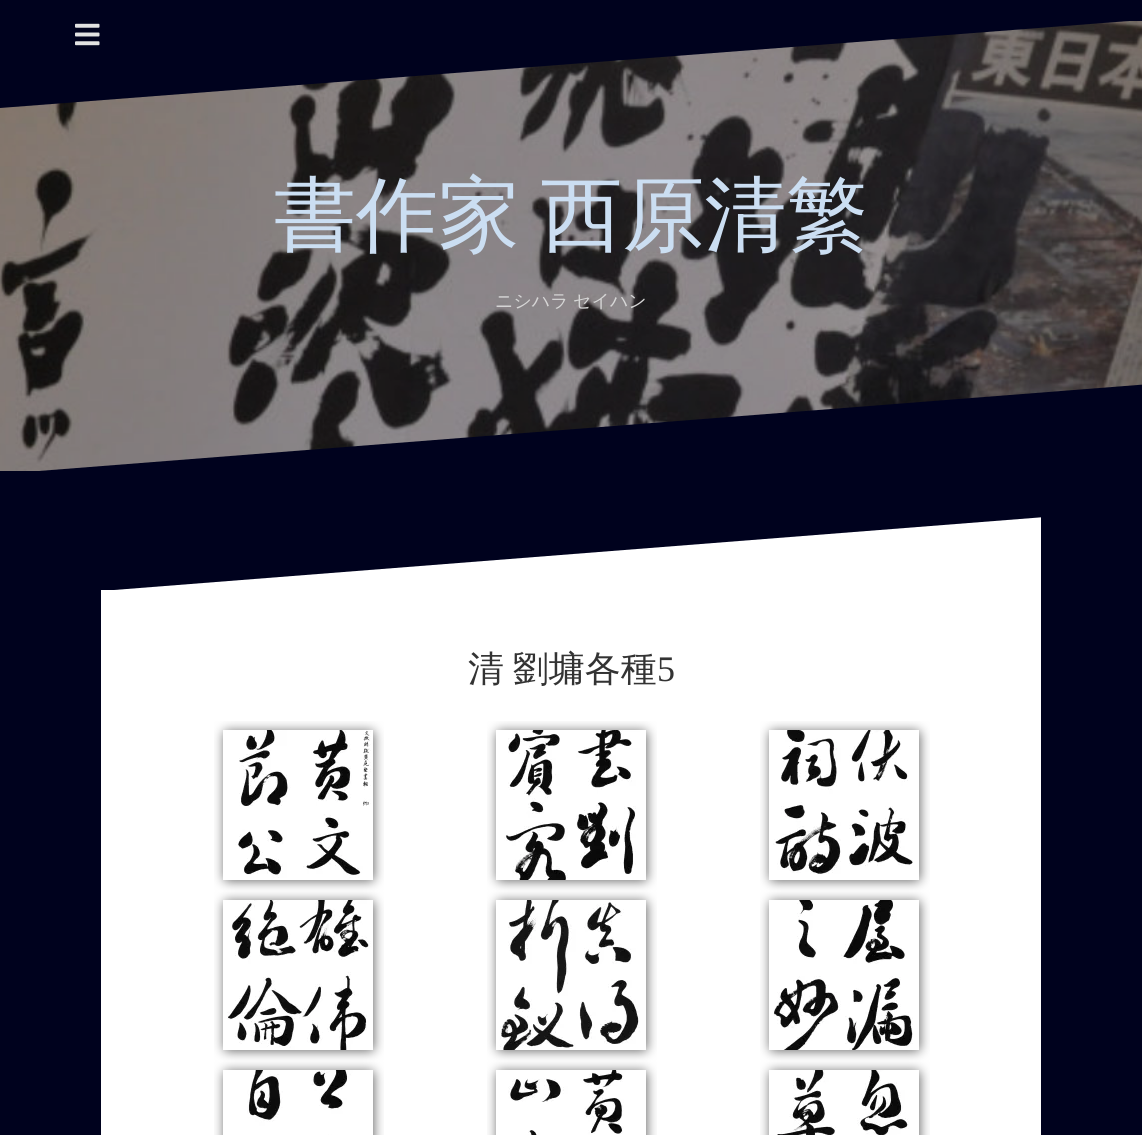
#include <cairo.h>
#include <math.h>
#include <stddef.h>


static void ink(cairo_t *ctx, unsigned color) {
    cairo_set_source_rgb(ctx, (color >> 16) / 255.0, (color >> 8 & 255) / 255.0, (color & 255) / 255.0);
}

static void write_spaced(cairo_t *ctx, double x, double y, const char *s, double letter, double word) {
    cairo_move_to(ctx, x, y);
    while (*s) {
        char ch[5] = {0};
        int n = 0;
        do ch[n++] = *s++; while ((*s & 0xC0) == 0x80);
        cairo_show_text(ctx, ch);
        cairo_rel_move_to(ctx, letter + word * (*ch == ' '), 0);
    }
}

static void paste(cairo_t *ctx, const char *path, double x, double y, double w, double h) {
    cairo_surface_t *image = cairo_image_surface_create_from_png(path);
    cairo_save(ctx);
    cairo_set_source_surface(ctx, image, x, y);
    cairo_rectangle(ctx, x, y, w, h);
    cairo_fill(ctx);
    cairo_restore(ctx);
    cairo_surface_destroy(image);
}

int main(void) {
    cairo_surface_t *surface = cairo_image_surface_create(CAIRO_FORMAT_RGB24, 1142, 1135);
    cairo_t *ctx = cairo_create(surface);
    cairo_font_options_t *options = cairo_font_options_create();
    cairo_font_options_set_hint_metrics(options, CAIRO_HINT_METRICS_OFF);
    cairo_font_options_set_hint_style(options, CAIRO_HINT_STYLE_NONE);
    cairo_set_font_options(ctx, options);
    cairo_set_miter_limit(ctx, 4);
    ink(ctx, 0x00021E);
    cairo_paint(ctx);
    paste(ctx, "media/2.png", 0, 21, 1142, 450);
    ink(ctx, 0x00021E);
    cairo_new_path(ctx);
    cairo_move_to(ctx, 0, 108);
    cairo_line_to(ctx, 0, 20);
    cairo_line_to(ctx, 1142, 20);
    cairo_fill(ctx);
    paste(ctx, "media/1.png", 75, 23, 25, 23);
    cairo_select_font_face(ctx, "WenQuanYi Zen Hei Medium", CAIRO_FONT_SLANT_NORMAL, CAIRO_FONT_WEIGHT_NORMAL);
    cairo_set_font_size(ctx, 82);
    ink(ctx, 0xCBDEF2);
    write_spaced(ctx, 274, 243, "書作家 西原清繁", 0, -4);
    cairo_set_font_size(ctx, 18);
    ink(ctx, 0xD6D6D6);
    write_spaced(ctx, 495, 307, "ニシハラ セイハン", 0, -1);
    cairo_save(ctx);
    cairo_rectangle(ctx, 0, 383, 1142, 90);
    cairo_clip(ctx);
    ink(ctx, 0x00021E);
    cairo_new_path(ctx);
    cairo_move_to(ctx, 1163, 383);
    cairo_line_to(ctx, 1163, 474);
    cairo_line_to(ctx, 0, 474);
    cairo_fill(ctx);
    cairo_restore(ctx);
    ink(ctx, 0xFFFFFF);
    cairo_rectangle(ctx, 101, 590, 940, 545);
    cairo_fill(ctx);
    cairo_save(ctx);
    cairo_rectangle(ctx, 101, 516, 940, 75);
    cairo_clip(ctx);
    cairo_new_path(ctx);
    cairo_move_to(ctx, 1058, 516);
    cairo_line_to(ctx, 1058, 591);
    cairo_line_to(ctx, 101, 591);
    cairo_fill(ctx);
    cairo_restore(ctx);
    cairo_set_font_size(ctx, 36);
    ink(ctx, 0x333333);
    write_spaced(ctx, 468, 681, "清 劉墉各種", 0, -2);
    cairo_select_font_face(ctx, "Liberation Serif", CAIRO_FONT_SLANT_NORMAL, CAIRO_FONT_WEIGHT_NORMAL);
    cairo_move_to(ctx, 657, 681);
    cairo_show_text(ctx, "5");
    paste(ctx, "media/3.png", 214, 721, 170, 170);
    paste(ctx, "media/4.png", 487, 721, 170, 170);
    paste(ctx, "media/5.png", 760, 721, 170, 170);
    paste(ctx, "media/6.png", 214, 891, 170, 170);
    paste(ctx, "media/7.png", 487, 891, 170, 170);
    paste(ctx, "media/8.png", 760, 891, 170, 170);
    paste(ctx, "media/9.png", 214, 1061, 170, 74);
    paste(ctx, "media/10.png", 487, 1061, 170, 74);
    paste(ctx, "media/11.png", 760, 1061, 170, 74);
    cairo_surface_write_to_png(surface, "image.png");
    cairo_font_options_destroy(options);
    cairo_destroy(ctx);
    cairo_surface_destroy(surface);
    return 0;
}
